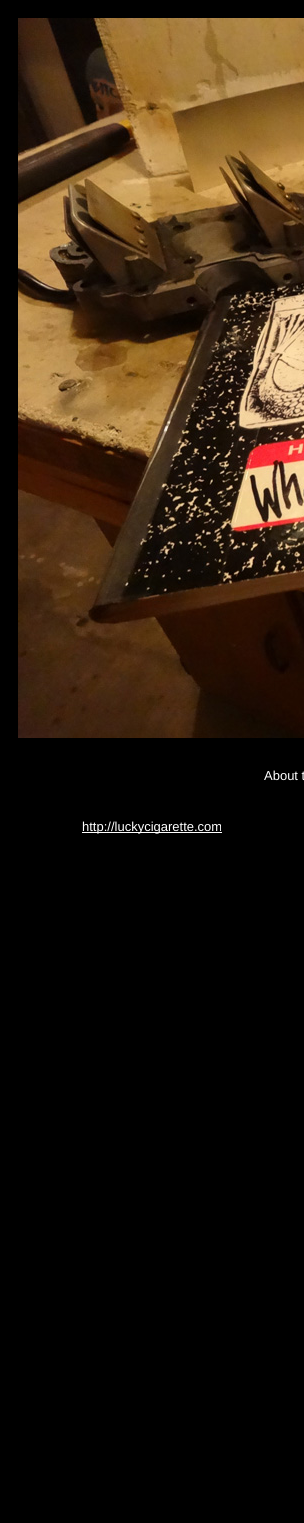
#include <cairo.h>
#include <math.h>
#include <stddef.h>


static void ink(cairo_t *ctx, unsigned color) {
    cairo_set_source_rgb(ctx, (color >> 16) / 255.0, (color >> 8 & 255) / 255.0, (color & 255) / 255.0);
}

static void paste(cairo_t *ctx, const char *path, double x, double y, double w, double h) {
    cairo_surface_t *image = cairo_image_surface_create_from_png(path);
    cairo_save(ctx);
    cairo_set_source_surface(ctx, image, x, y);
    cairo_rectangle(ctx, x, y, w, h);
    cairo_fill(ctx);
    cairo_restore(ctx);
    cairo_surface_destroy(image);
}

int main(void) {
    cairo_surface_t *surface = cairo_image_surface_create(CAIRO_FORMAT_RGB24, 304, 1523);
    cairo_t *ctx = cairo_create(surface);
    cairo_font_options_t *options = cairo_font_options_create();
    cairo_font_options_set_hint_metrics(options, CAIRO_HINT_METRICS_OFF);
    cairo_font_options_set_hint_style(options, CAIRO_HINT_STYLE_NONE);
    cairo_set_font_options(ctx, options);
    cairo_set_miter_limit(ctx, 4);
    ink(ctx, 0x000000);
    cairo_paint(ctx);
    paste(ctx, "media/1.png", 18, 18, 286, 720);
    cairo_select_font_face(ctx, "Liberation Sans", CAIRO_FONT_SLANT_NORMAL, CAIRO_FONT_WEIGHT_NORMAL);
    cairo_set_font_size(ctx, 13);
    ink(ctx, 0xFFFFFF);
    cairo_move_to(ctx, 264, 780);
    cairo_show_text(ctx, "About t");
    cairo_rectangle(ctx, 82, 832, 140, 1);
    cairo_fill(ctx);
    cairo_move_to(ctx, 82, 831);
    cairo_show_text(ctx, "http://luckycigarette.com");
    cairo_surface_write_to_png(surface, "image.png");
    cairo_font_options_destroy(options);
    cairo_destroy(ctx);
    cairo_surface_destroy(surface);
    return 0;
}
